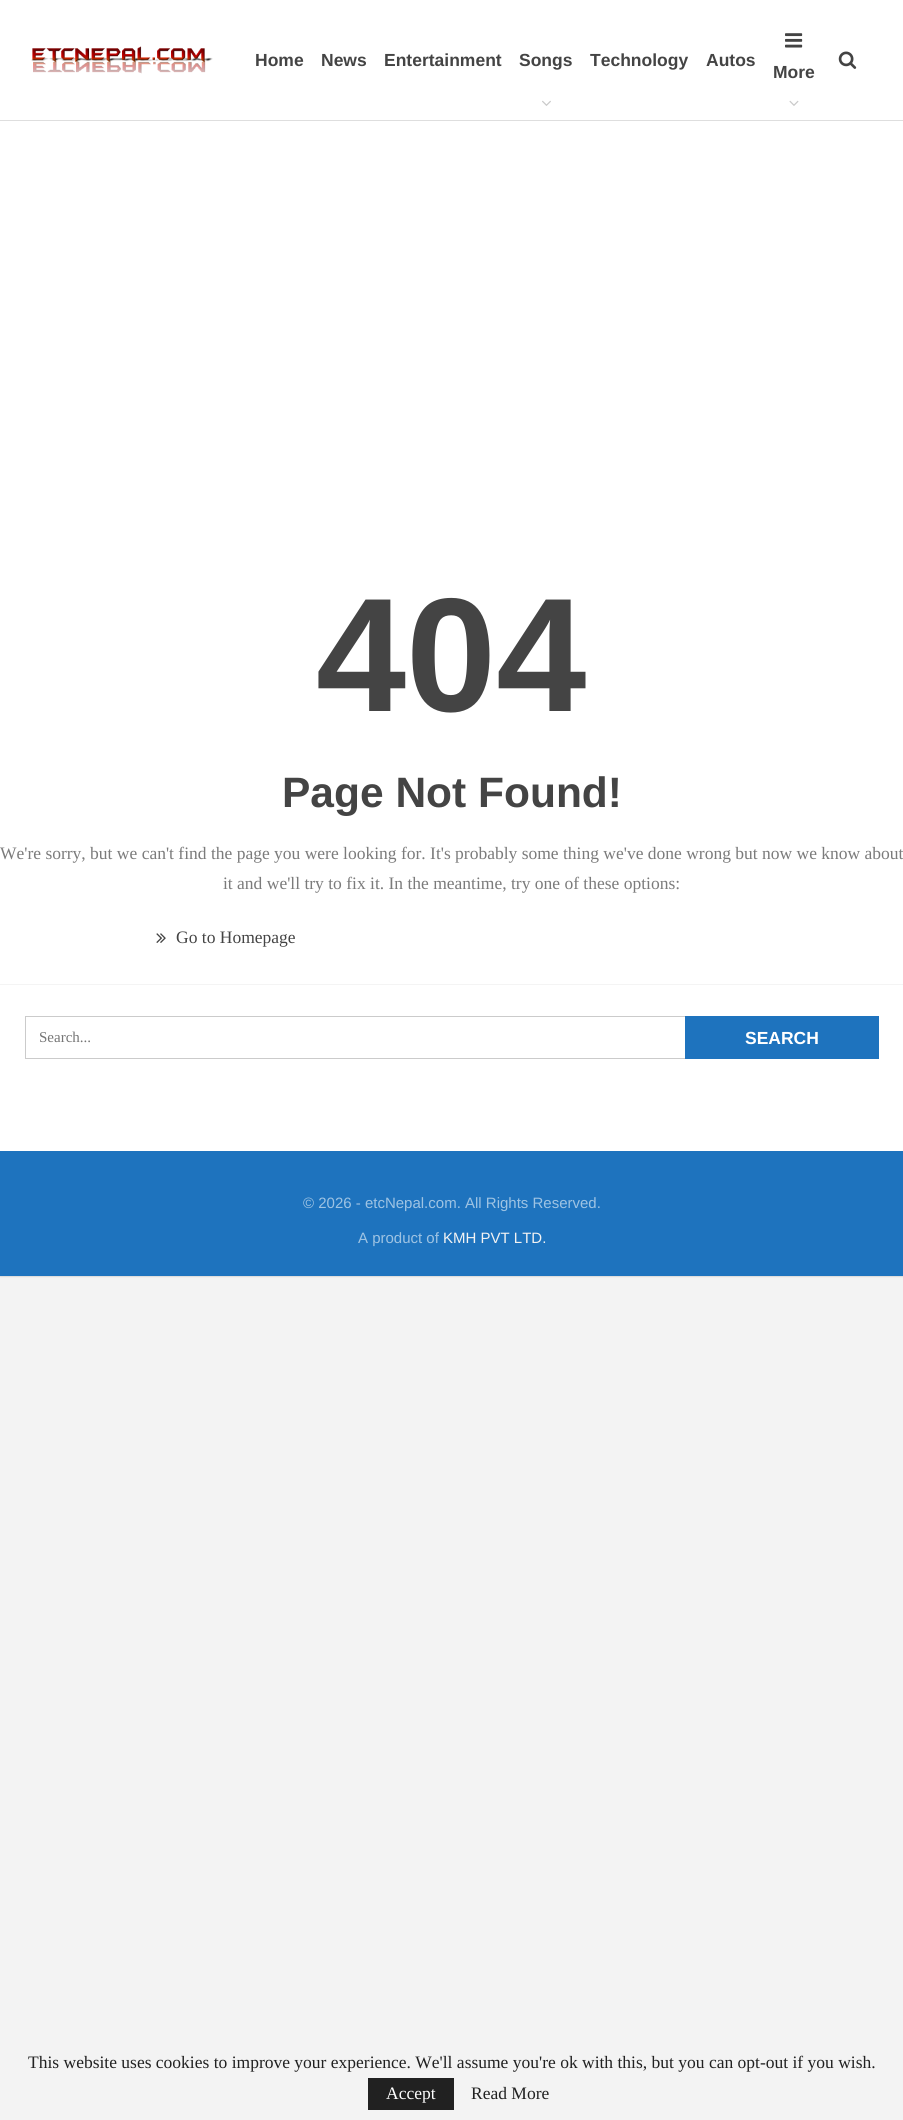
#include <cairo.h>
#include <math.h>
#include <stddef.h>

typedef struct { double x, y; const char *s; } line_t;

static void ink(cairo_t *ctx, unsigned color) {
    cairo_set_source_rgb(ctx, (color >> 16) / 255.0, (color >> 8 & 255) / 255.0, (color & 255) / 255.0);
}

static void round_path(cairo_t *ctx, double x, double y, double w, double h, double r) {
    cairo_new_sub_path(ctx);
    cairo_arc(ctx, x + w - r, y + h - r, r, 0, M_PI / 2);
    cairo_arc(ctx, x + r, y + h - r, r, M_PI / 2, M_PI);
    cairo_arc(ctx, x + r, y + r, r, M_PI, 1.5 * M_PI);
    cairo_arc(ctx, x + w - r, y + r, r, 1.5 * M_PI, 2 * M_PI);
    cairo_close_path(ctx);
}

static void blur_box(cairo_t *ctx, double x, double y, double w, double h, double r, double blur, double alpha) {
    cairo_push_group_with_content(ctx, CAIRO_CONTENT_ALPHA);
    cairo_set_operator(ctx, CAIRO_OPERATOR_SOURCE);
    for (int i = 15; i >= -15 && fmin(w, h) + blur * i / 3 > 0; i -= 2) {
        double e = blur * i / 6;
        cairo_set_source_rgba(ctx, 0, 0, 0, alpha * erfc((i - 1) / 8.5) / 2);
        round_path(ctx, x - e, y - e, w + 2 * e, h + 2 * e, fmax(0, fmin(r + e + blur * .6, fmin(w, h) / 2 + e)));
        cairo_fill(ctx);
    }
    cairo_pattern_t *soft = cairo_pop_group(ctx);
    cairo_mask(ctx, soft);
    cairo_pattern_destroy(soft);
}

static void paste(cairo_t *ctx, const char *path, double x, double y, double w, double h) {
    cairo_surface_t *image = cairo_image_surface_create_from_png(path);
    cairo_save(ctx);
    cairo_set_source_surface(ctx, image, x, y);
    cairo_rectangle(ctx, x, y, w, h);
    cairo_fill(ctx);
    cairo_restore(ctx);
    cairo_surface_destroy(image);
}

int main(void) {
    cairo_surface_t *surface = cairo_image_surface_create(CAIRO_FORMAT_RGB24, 903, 2120);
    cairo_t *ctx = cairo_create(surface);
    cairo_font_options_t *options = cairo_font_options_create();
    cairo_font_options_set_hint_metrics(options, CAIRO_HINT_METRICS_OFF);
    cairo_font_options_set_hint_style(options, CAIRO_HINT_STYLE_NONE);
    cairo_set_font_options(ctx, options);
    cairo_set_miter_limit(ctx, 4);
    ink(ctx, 0xF3F3F3);
    cairo_paint(ctx);
    ink(ctx, 0x000000);
    blur_box(ctx, 0, 0, 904, 1276, 0, 1, 0.27);
    ink(ctx, 0xFFFFFF);
    cairo_rectangle(ctx, 0, 0, 903, 1151);
    cairo_fill(ctx);
    ink(ctx, 0xDEDEDE);
    cairo_rectangle(ctx, 0, 120, 903, 1);
    cairo_fill(ctx);
    paste(ctx, "media/1.png", 31, 46, 182, 28);
    cairo_select_font_face(ctx, "Liberation Sans", CAIRO_FONT_SLANT_NORMAL, CAIRO_FONT_WEIGHT_BOLD);
    cairo_set_font_size(ctx, 17.5);
    ink(ctx, 0x444444);
    {
        static const line_t items[] = {
            {255, 66, "Home"},
            {321, 66, "News"},
            {384, 66, "Entertainment"},
            {519, 66, "Songs"},
        };
        for (size_t i = 0; i < sizeof items / sizeof *items; i++) {
            cairo_move_to(ctx, items[i].x, items[i].y);
            cairo_show_text(ctx, items[i].s);
        }
    }
    paste(ctx, "media/2.png", 542, 100, 9, 6);
    cairo_move_to(ctx, 590, 66);
    cairo_show_text(ctx, "Technology");
    cairo_move_to(ctx, 706, 66);
    cairo_show_text(ctx, "Autos");
    paste(ctx, "media/3.png", 785, 33, 18, 15);
    cairo_move_to(ctx, 773, 78);
    cairo_show_text(ctx, "More");
    paste(ctx, "media/4.png", 789, 100, 10, 6);
    paste(ctx, "media/5.png", 838, 51, 19, 18);
    cairo_set_font_size(ctx, 162);
    cairo_move_to(ctx, 316, 711);
    cairo_show_text(ctx, "404");
    cairo_set_font_size(ctx, 42.5);
    cairo_move_to(ctx, 282, 807);
    cairo_show_text(ctx, "Page Not Found!");
    cairo_select_font_face(ctx, "Liberation Serif", CAIRO_FONT_SLANT_NORMAL, CAIRO_FONT_WEIGHT_NORMAL);
    cairo_set_font_size(ctx, 17.5);
    ink(ctx, 0x7B7B7B);
    cairo_move_to(ctx, 0, 859);
    cairo_show_text(ctx, "We're sorry, but we can't find the page you were looking for. It's probably some thing we've done wrong but now we know about");
    cairo_move_to(ctx, 223, 889);
    cairo_show_text(ctx, "it and we'll try to fix it. In the meantime, try one of these options:");
    paste(ctx, "media/6.png", 156, 933, 10, 10);
    ink(ctx, 0x444444);
    cairo_move_to(ctx, 176, 943);
    cairo_show_text(ctx, "Go to Homepage");
    ink(ctx, 0xF4F4F4);
    cairo_rectangle(ctx, 0, 984, 903, 1);
    cairo_fill(ctx);
    cairo_rectangle(ctx, 25.5, 1016.5, 853, 42);
    ink(ctx, 0xCBCBCB);
    cairo_set_line_width(ctx, 1);
    cairo_stroke(ctx);
    cairo_set_font_size(ctx, 15);
    ink(ctx, 0x757575);
    cairo_move_to(ctx, 39, 1042);
    cairo_show_text(ctx, "Search...");
    ink(ctx, 0x1E73BE);
    cairo_rectangle(ctx, 685, 1016, 194, 43);
    cairo_fill(ctx);
    cairo_select_font_face(ctx, "Liberation Sans", CAIRO_FONT_SLANT_NORMAL, CAIRO_FONT_WEIGHT_BOLD);
    cairo_set_font_size(ctx, 17.5);
    ink(ctx, 0xFFFFFF);
    cairo_move_to(ctx, 745, 1044);
    cairo_show_text(ctx, "SEARCH");
    ink(ctx, 0x1E73BE);
    cairo_rectangle(ctx, 0, 1151, 903, 125);
    cairo_fill(ctx);
    cairo_select_font_face(ctx, "Liberation Sans", CAIRO_FONT_SLANT_NORMAL, CAIRO_FONT_WEIGHT_NORMAL);
    cairo_set_font_size(ctx, 15);
    ink(ctx, 0x9EC3E3);
    cairo_move_to(ctx, 303, 1208);
    cairo_show_text(ctx, "© 2026 - etcNepal.com. All Rights Reserved.");
    cairo_move_to(ctx, 358, 1243);
    cairo_show_text(ctx, "A product of");
    ink(ctx, 0xF3F3F3);
    cairo_move_to(ctx, 443, 1243);
    cairo_show_text(ctx, "KMH PVT LTD.");
    cairo_select_font_face(ctx, "Liberation Serif", CAIRO_FONT_SLANT_NORMAL, CAIRO_FONT_WEIGHT_NORMAL);
    cairo_set_font_size(ctx, 17.5);
    ink(ctx, 0x212121);
    cairo_move_to(ctx, 28, 2068);
    cairo_show_text(ctx, "This website uses cookies to improve your experience. We'll assume you're ok with this, but you can opt-out if you wish.");
    cairo_rectangle(ctx, 368, 2078, 86, 32);
    cairo_fill(ctx);
    ink(ctx, 0xFFFFFF);
    cairo_move_to(ctx, 386, 2099);
    cairo_show_text(ctx, "Accept");
    ink(ctx, 0x212121);
    cairo_move_to(ctx, 471, 2099);
    cairo_show_text(ctx, "Read More");
    cairo_surface_write_to_png(surface, "image.png");
    cairo_font_options_destroy(options);
    cairo_destroy(ctx);
    cairo_surface_destroy(surface);
    return 0;
}
